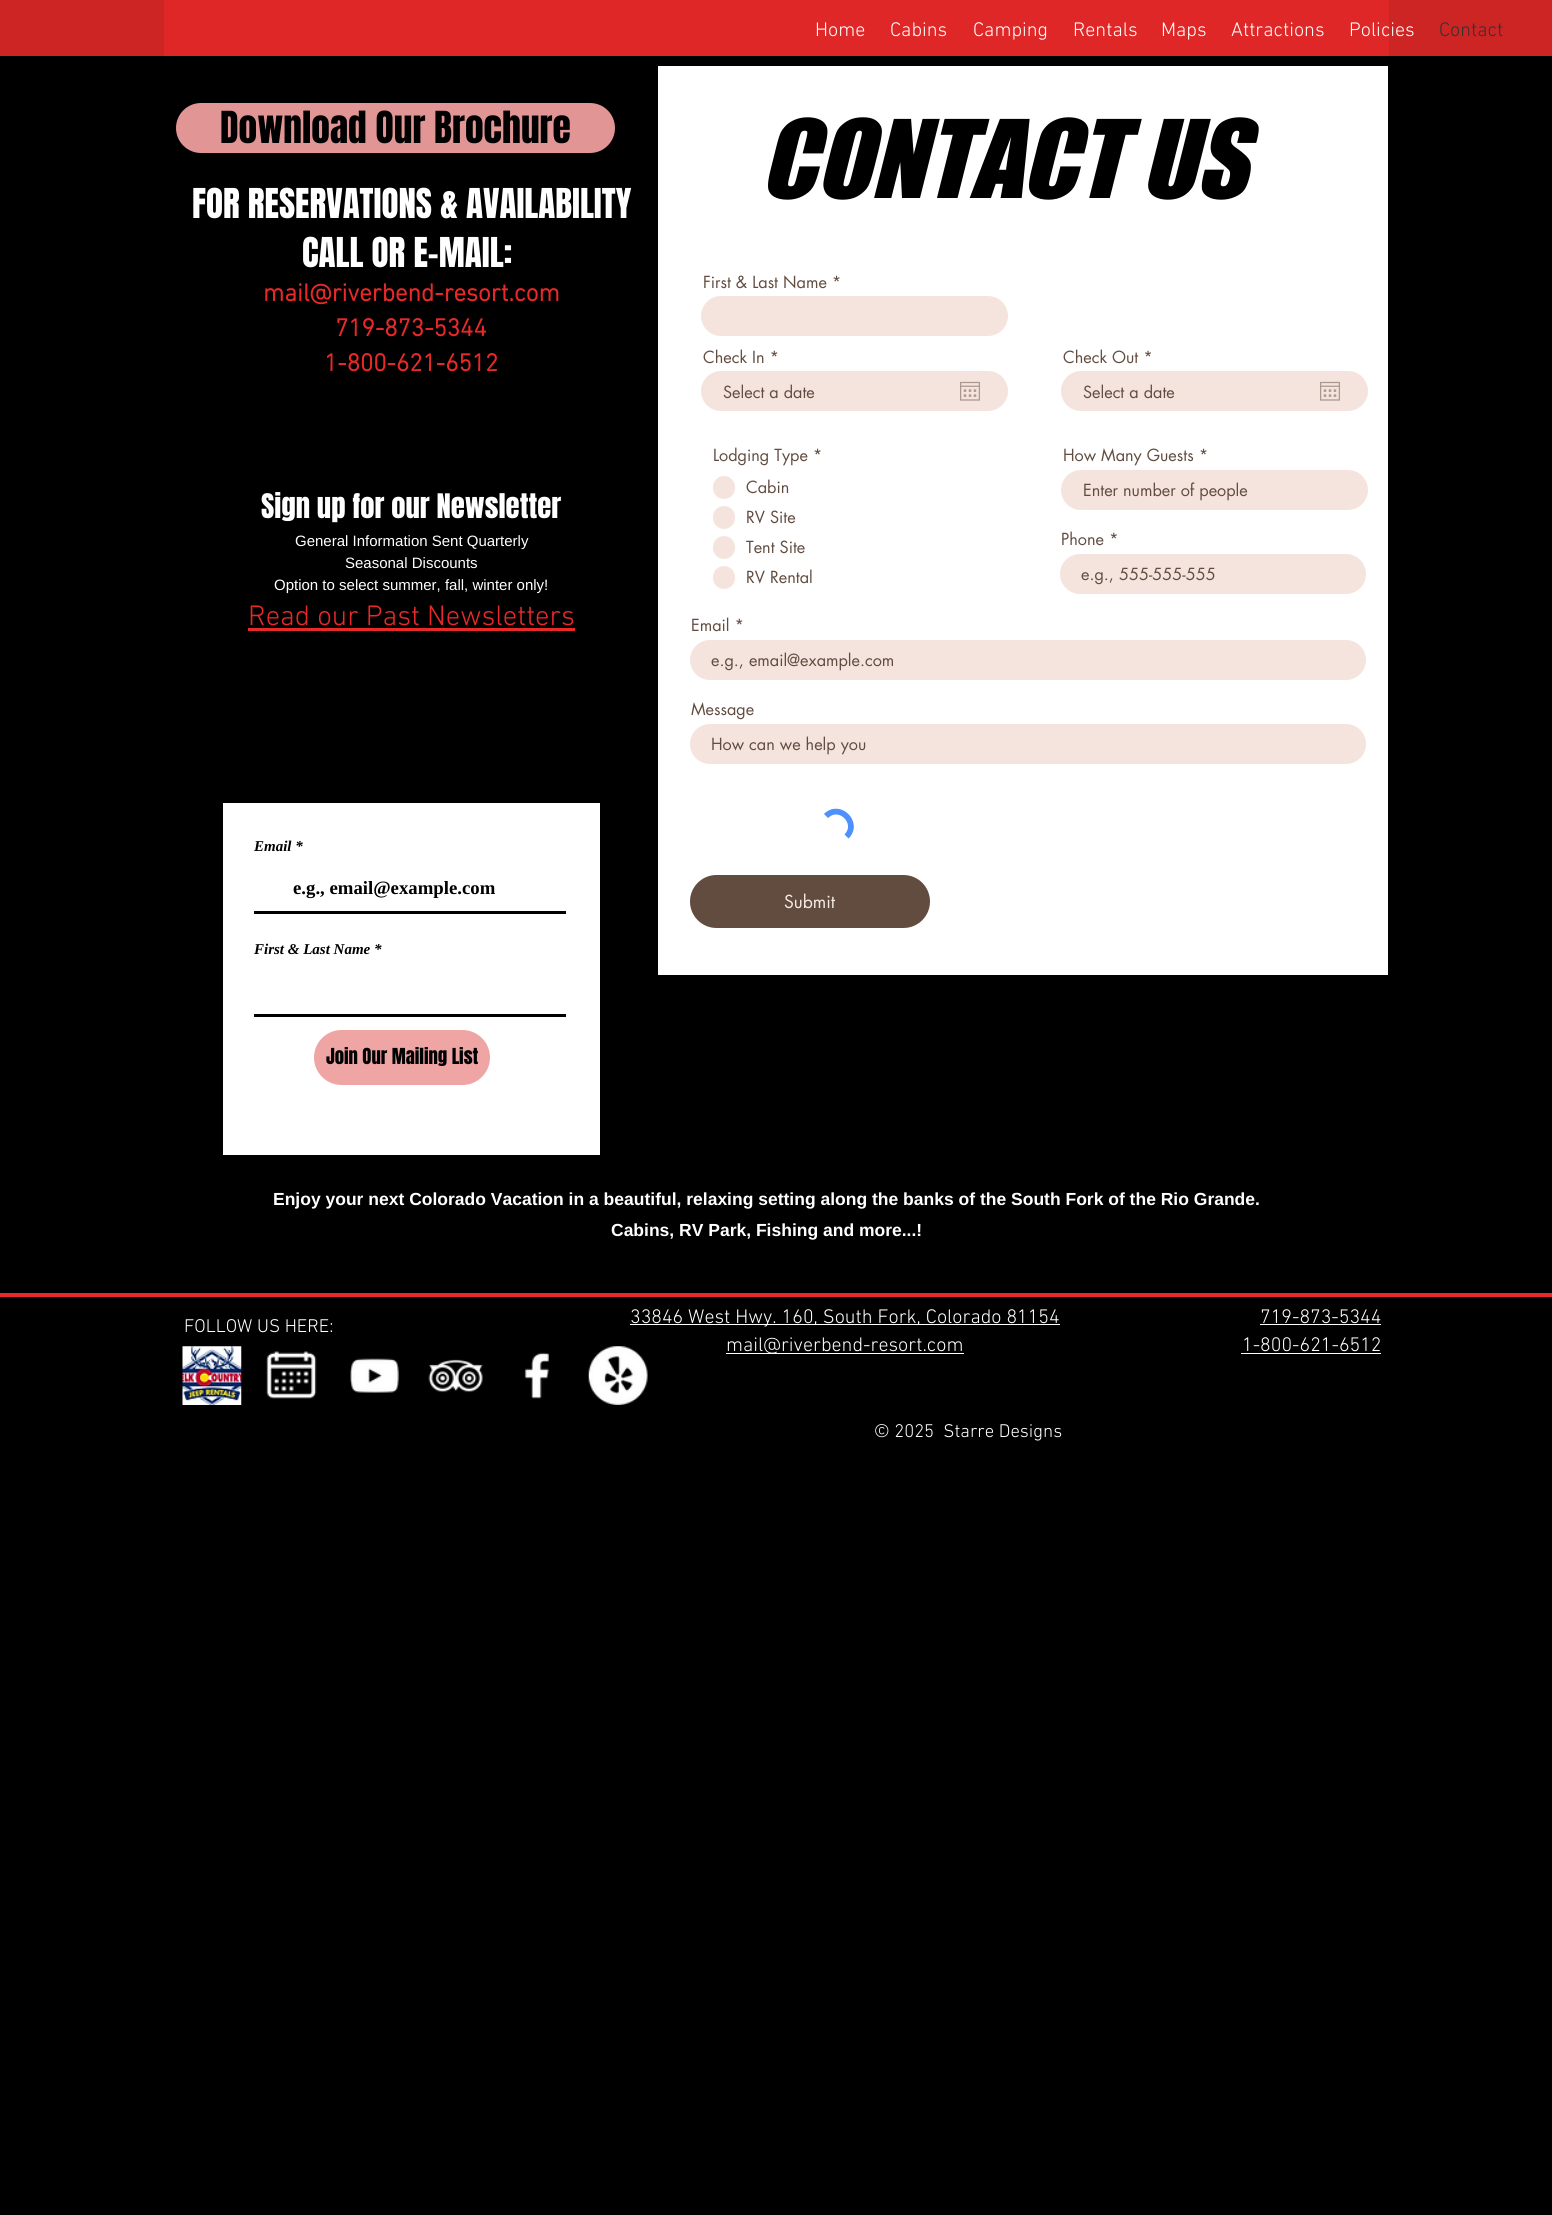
#include <cairo.h>
#include <math.h>
#include <stddef.h>

typedef struct { double x, y; const char *s; } line_t;

static void ink(cairo_t *ctx, unsigned color) {
    cairo_set_source_rgb(ctx, (color >> 16) / 255.0, (color >> 8 & 255) / 255.0, (color & 255) / 255.0);
}

static void round_path(cairo_t *ctx, double x, double y, double w, double h, double r) {
    cairo_new_sub_path(ctx);
    cairo_arc(ctx, x + w - r, y + h - r, r, 0, M_PI / 2);
    cairo_arc(ctx, x + r, y + h - r, r, M_PI / 2, M_PI);
    cairo_arc(ctx, x + r, y + r, r, M_PI, 1.5 * M_PI);
    cairo_arc(ctx, x + w - r, y + r, r, 1.5 * M_PI, 2 * M_PI);
    cairo_close_path(ctx);
}

static void paste(cairo_t *ctx, const char *path, double x, double y, double w, double h) {
    cairo_surface_t *image = cairo_image_surface_create_from_png(path);
    cairo_save(ctx);
    cairo_set_source_surface(ctx, image, x, y);
    cairo_rectangle(ctx, x, y, w, h);
    cairo_fill(ctx);
    cairo_restore(ctx);
    cairo_surface_destroy(image);
}

int main(void) {
    cairo_surface_t *surface = cairo_image_surface_create(CAIRO_FORMAT_RGB24, 1552, 2215);
    cairo_t *ctx = cairo_create(surface);
    cairo_font_options_t *options = cairo_font_options_create();
    cairo_font_options_set_hint_metrics(options, CAIRO_HINT_METRICS_OFF);
    cairo_font_options_set_hint_style(options, CAIRO_HINT_STYLE_NONE);
    cairo_set_font_options(ctx, options);
    cairo_set_miter_limit(ctx, 4);
    ink(ctx, 0x000000);
    cairo_paint(ctx);
    ink(ctx, 0xCD2424);
    cairo_rectangle(ctx, 0, 0, 1552, 56);
    cairo_fill(ctx);
    ink(ctx, 0xDF2727);
    cairo_rectangle(ctx, 164, 0, 1225, 56);
    cairo_fill(ctx);
    cairo_select_font_face(ctx, "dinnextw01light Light", CAIRO_FONT_SLANT_NORMAL, CAIRO_FONT_WEIGHT_NORMAL);
    cairo_set_font_size(ctx, 20);
    ink(ctx, 0xFFFFFF);
    {
        static const line_t items[] = {
            {815, 36, "Home"},
            {890, 36, "Cabins"},
            {973, 36, "Camping"},
            {1073, 36, "Rentals"},
            {1161, 36, "Maps"},
            {1231, 36, "Attractions"},
            {1349, 36, "Policies"},
        };
        for (size_t i = 0; i < sizeof items / sizeof *items; i++) {
            cairo_move_to(ctx, items[i].x, items[i].y);
            cairo_show_text(ctx, items[i].s);
        }
    }
    ink(ctx, 0x333333);
    cairo_move_to(ctx, 1439, 36);
    cairo_show_text(ctx, "Contact");
    ink(ctx, 0xE19595);
    round_path(ctx, 176, 103, 439, 50, 25);
    cairo_fill(ctx);
    cairo_select_font_face(ctx, "Anton", CAIRO_FONT_SLANT_NORMAL, CAIRO_FONT_WEIGHT_NORMAL);
    cairo_set_font_size(ctx, 37.5);
    ink(ctx, 0x000000);
    cairo_move_to(ctx, 220, 143);
    cairo_show_text(ctx, "Download Our Brochure");
    ink(ctx, 0xFFFFFF);
    cairo_rectangle(ctx, 658, 66, 730, 909);
    cairo_fill(ctx);
    cairo_select_font_face(ctx, "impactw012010", CAIRO_FONT_SLANT_ITALIC, CAIRO_FONT_WEIGHT_NORMAL);
    cairo_set_font_size(ctx, 100);
    ink(ctx, 0x000000);
    cairo_move_to(ctx, 760, 198);
    cairo_show_text(ctx, "CONTACT US");
    cairo_select_font_face(ctx, "futura", CAIRO_FONT_SLANT_NORMAL, CAIRO_FONT_WEIGHT_NORMAL);
    cairo_set_font_size(ctx, 16.25);
    ink(ctx, 0x624C40);
    cairo_move_to(ctx, 703, 288);
    cairo_show_text(ctx, "First & Last Name *");
    ink(ctx, 0xF4E4DD);
    round_path(ctx, 701, 296, 307, 40, 20);
    cairo_fill(ctx);
    ink(ctx, 0x624C40);
    cairo_move_to(ctx, 703, 363);
    cairo_show_text(ctx, "Check In *");
    ink(ctx, 0xF4E4DD);
    round_path(ctx, 701, 371, 307, 40, 20);
    cairo_fill(ctx);
    ink(ctx, 0x624C40);
    cairo_move_to(ctx, 723, 398);
    cairo_show_text(ctx, "Select a date");
    paste(ctx, "media/1.png", 960, 381, 20, 20);
    cairo_move_to(ctx, 1063, 363);
    cairo_show_text(ctx, "Check Out *");
    ink(ctx, 0xF4E4DD);
    round_path(ctx, 1061, 371, 307, 40, 20);
    cairo_fill(ctx);
    ink(ctx, 0x624C40);
    cairo_move_to(ctx, 1083, 398);
    cairo_show_text(ctx, "Select a date");
    paste(ctx, "media/1.png", 1320, 381, 20, 20);
    cairo_move_to(ctx, 713, 461);
    cairo_show_text(ctx, "Lodging Type *");
    ink(ctx, 0xF4E4DD);
    round_path(ctx, 713, 476, 22, 23, 11);
    cairo_fill(ctx);
    ink(ctx, 0x624C40);
    cairo_move_to(ctx, 746, 493);
    cairo_show_text(ctx, "Cabin");
    ink(ctx, 0xF4E4DD);
    round_path(ctx, 713, 506, 22, 23, 11);
    cairo_fill(ctx);
    ink(ctx, 0x624C40);
    cairo_move_to(ctx, 746, 523);
    cairo_show_text(ctx, "RV Site");
    ink(ctx, 0xF4E4DD);
    round_path(ctx, 713, 536, 22, 23, 11);
    cairo_fill(ctx);
    ink(ctx, 0x624C40);
    cairo_move_to(ctx, 746, 553);
    cairo_show_text(ctx, "Tent Site");
    ink(ctx, 0xF4E4DD);
    round_path(ctx, 713, 566, 22, 23, 11);
    cairo_fill(ctx);
    ink(ctx, 0x624C40);
    cairo_move_to(ctx, 746, 583);
    cairo_show_text(ctx, "RV Rental");
    cairo_move_to(ctx, 1063, 461);
    cairo_show_text(ctx, "How Many Guests *");
    ink(ctx, 0xF4E4DD);
    round_path(ctx, 1061, 470, 307, 40, 20);
    cairo_fill(ctx);
    ink(ctx, 0x624C40);
    cairo_move_to(ctx, 1083, 496);
    cairo_show_text(ctx, "Enter number of people");
    cairo_move_to(ctx, 1061, 545);
    cairo_show_text(ctx, "Phone *");
    ink(ctx, 0xF4E4DD);
    round_path(ctx, 1060, 554, 306, 40, 20);
    cairo_fill(ctx);
    ink(ctx, 0x624C40);
    cairo_move_to(ctx, 1081, 580);
    cairo_show_text(ctx, "e.g., 555-555-555");
    cairo_move_to(ctx, 691, 631);
    cairo_show_text(ctx, "Email *");
    ink(ctx, 0xF4E4DD);
    round_path(ctx, 690, 640, 676, 40, 20);
    cairo_fill(ctx);
    ink(ctx, 0x624C40);
    cairo_move_to(ctx, 711, 666);
    cairo_show_text(ctx, "e.g., email@example.com");
    cairo_move_to(ctx, 691, 715);
    cairo_show_text(ctx, "Message");
    ink(ctx, 0xF4E4DD);
    round_path(ctx, 690, 724, 676, 40, 20);
    cairo_fill(ctx);
    ink(ctx, 0x624C40);
    cairo_move_to(ctx, 711, 750);
    cairo_show_text(ctx, "How can we help you");
    cairo_new_path(ctx);
    cairo_move_to(ctx, 826, 816);
    cairo_curve_to(ctx, 839.5, 802.5, 860, 823, 846.5, 836.5);
    ink(ctx, 0x4D90FE);
    cairo_set_line_width(ctx, 5.8);
    cairo_stroke(ctx);
    ink(ctx, 0x624C40);
    round_path(ctx, 690, 875, 240, 53, 26.5);
    cairo_fill(ctx);
    cairo_set_font_size(ctx, 17.5);
    ink(ctx, 0xF6EBE4);
    cairo_move_to(ctx, 784, 908);
    cairo_show_text(ctx, "Submit");
    cairo_select_font_face(ctx, "Anton", CAIRO_FONT_SLANT_NORMAL, CAIRO_FONT_WEIGHT_NORMAL);
    cairo_set_font_size(ctx, 35);
    ink(ctx, 0xFFFFFF);
    cairo_move_to(ctx, 192, 218);
    cairo_show_text(ctx, "FOR RESERVATIONS & AVAILABILITY");
    cairo_move_to(ctx, 302, 267);
    cairo_show_text(ctx, "CALL OR E-MAIL:");
    cairo_select_font_face(ctx, "dinnextw01light", CAIRO_FONT_SLANT_NORMAL, CAIRO_FONT_WEIGHT_BOLD);
    cairo_set_font_size(ctx, 25);
    ink(ctx, 0xE92929);
    {
        static const line_t items[] = {
            {263, 301, "mail@riverbend-resort.com"},
            {335, 336, "719-873-5344"},
            {324, 371, "1-800-621-6512"},
        };
        for (size_t i = 0; i < sizeof items / sizeof *items; i++) {
            cairo_move_to(ctx, items[i].x, items[i].y);
            cairo_show_text(ctx, items[i].s);
        }
    }
    cairo_select_font_face(ctx, "Anton", CAIRO_FONT_SLANT_NORMAL, CAIRO_FONT_WEIGHT_NORMAL);
    cairo_set_font_size(ctx, 28.75);
    ink(ctx, 0xFFFFFF);
    cairo_move_to(ctx, 261, 518);
    cairo_show_text(ctx, "Sign up for our Newsletter");
    cairo_select_font_face(ctx, "Liberation Sans", CAIRO_FONT_SLANT_NORMAL, CAIRO_FONT_WEIGHT_NORMAL);
    cairo_set_font_size(ctx, 15);
    {
        static const line_t items[] = {
            {295, 546, "General Information Sent Quarterly"},
            {345, 568, "Seasonal Discounts"},
            {274, 590, "Option to select summer, fall, winter only!"},
        };
        for (size_t i = 0; i < sizeof items / sizeof *items; i++) {
            cairo_move_to(ctx, items[i].x, items[i].y);
            cairo_show_text(ctx, items[i].s);
        }
    }
    cairo_select_font_face(ctx, "dinnextw01light Light", CAIRO_FONT_SLANT_NORMAL, CAIRO_FONT_WEIGHT_NORMAL);
    cairo_set_font_size(ctx, 28.75);
    ink(ctx, 0xE92929);
    cairo_move_to(ctx, 248, 625);
    cairo_show_text(ctx, "Read our Past Newsletters");
    cairo_rectangle(ctx, 248, 628, 327, 3);
    cairo_fill(ctx);
    ink(ctx, 0xFFFFFF);
    cairo_rectangle(ctx, 223, 803, 377, 352);
    cairo_fill(ctx);
    cairo_select_font_face(ctx, "Liberation Serif", CAIRO_FONT_SLANT_ITALIC, CAIRO_FONT_WEIGHT_BOLD);
    cairo_set_font_size(ctx, 15);
    ink(ctx, 0x000000);
    cairo_move_to(ctx, 254, 851);
    cairo_show_text(ctx, "Email *");
    cairo_rectangle(ctx, 254, 911, 312, 3);
    cairo_fill(ctx);
    cairo_select_font_face(ctx, "Liberation Serif", CAIRO_FONT_SLANT_NORMAL, CAIRO_FONT_WEIGHT_BOLD);
    cairo_set_font_size(ctx, 18.75);
    cairo_move_to(ctx, 293, 894);
    cairo_show_text(ctx, "e.g., email@example.com");
    cairo_select_font_face(ctx, "Liberation Serif", CAIRO_FONT_SLANT_ITALIC, CAIRO_FONT_WEIGHT_BOLD);
    cairo_set_font_size(ctx, 15);
    cairo_move_to(ctx, 254, 954);
    cairo_show_text(ctx, "First & Last Name *");
    cairo_rectangle(ctx, 254, 1014, 312, 3);
    cairo_fill(ctx);
    ink(ctx, 0xF0A5A5);
    round_path(ctx, 314, 1030, 176, 55, 27.5);
    cairo_fill(ctx);
    cairo_select_font_face(ctx, "Anton", CAIRO_FONT_SLANT_NORMAL, CAIRO_FONT_WEIGHT_NORMAL);
    cairo_set_font_size(ctx, 18.75);
    ink(ctx, 0x000000);
    cairo_move_to(ctx, 326, 1064);
    cairo_show_text(ctx, "Join Our Mailing List");
    cairo_select_font_face(ctx, "Liberation Sans", CAIRO_FONT_SLANT_NORMAL, CAIRO_FONT_WEIGHT_BOLD);
    cairo_set_font_size(ctx, 17.5);
    ink(ctx, 0xFFFFFF);
    cairo_move_to(ctx, 273, 1205);
    cairo_show_text(ctx, "Enjoy your next Colorado Vacation in a beautiful, relaxing setting along the banks of the South Fork of the Rio Grande.");
    cairo_move_to(ctx, 611, 1236);
    cairo_show_text(ctx, "Cabins, RV Park, Fishing and more...!");
    ink(ctx, 0xE92929);
    cairo_rectangle(ctx, 0, 1293, 1552, 4);
    cairo_fill(ctx);
    cairo_select_font_face(ctx, "dinnextw01light Light", CAIRO_FONT_SLANT_NORMAL, CAIRO_FONT_WEIGHT_NORMAL);
    cairo_set_font_size(ctx, 18.75);
    ink(ctx, 0xFFFFFF);
    cairo_move_to(ctx, 184, 1332);
    cairo_show_text(ctx, "FOLLOW US HERE:");
    cairo_rectangle(ctx, 630, 1324, 430, 1);
    cairo_fill(ctx);
    cairo_set_font_size(ctx, 20);
    cairo_move_to(ctx, 630, 1323);
    cairo_show_text(ctx, "33846 West Hwy. 160, South Fork, Colorado 81154");
    cairo_rectangle(ctx, 726, 1353, 238, 1);
    cairo_fill(ctx);
    cairo_move_to(ctx, 726, 1351);
    cairo_show_text(ctx, "mail@riverbend-resort.com");
    cairo_move_to(ctx, 1260, 1323);
    cairo_show_text(ctx, "719-873-5344");
    cairo_rectangle(ctx, 1260, 1324, 121, 1);
    cairo_fill(ctx);
    cairo_move_to(ctx, 1242, 1351);
    cairo_show_text(ctx, "1-800-621-6512");
    cairo_rectangle(ctx, 1241, 1353, 140, 1);
    cairo_fill(ctx);
    paste(ctx, "media/2.png", 182, 1346, 60, 59);
    paste(ctx, "media/3.png", 266, 1351, 51, 48);
    paste(ctx, "media/4.png", 350, 1358, 49, 35);
    paste(ctx, "media/5.png", 428, 1359, 55, 34);
    paste(ctx, "media/6.png", 524, 1352, 25, 47);
    paste(ctx, "media/7.png", 588, 1346, 60, 59);
    cairo_set_font_size(ctx, 18.75);
    cairo_move_to(ctx, 874, 1437);
    cairo_show_text(ctx, "© 2025  Starre Designs");
    cairo_surface_write_to_png(surface, "image.png");
    cairo_font_options_destroy(options);
    cairo_destroy(ctx);
    cairo_surface_destroy(surface);
    return 0;
}
